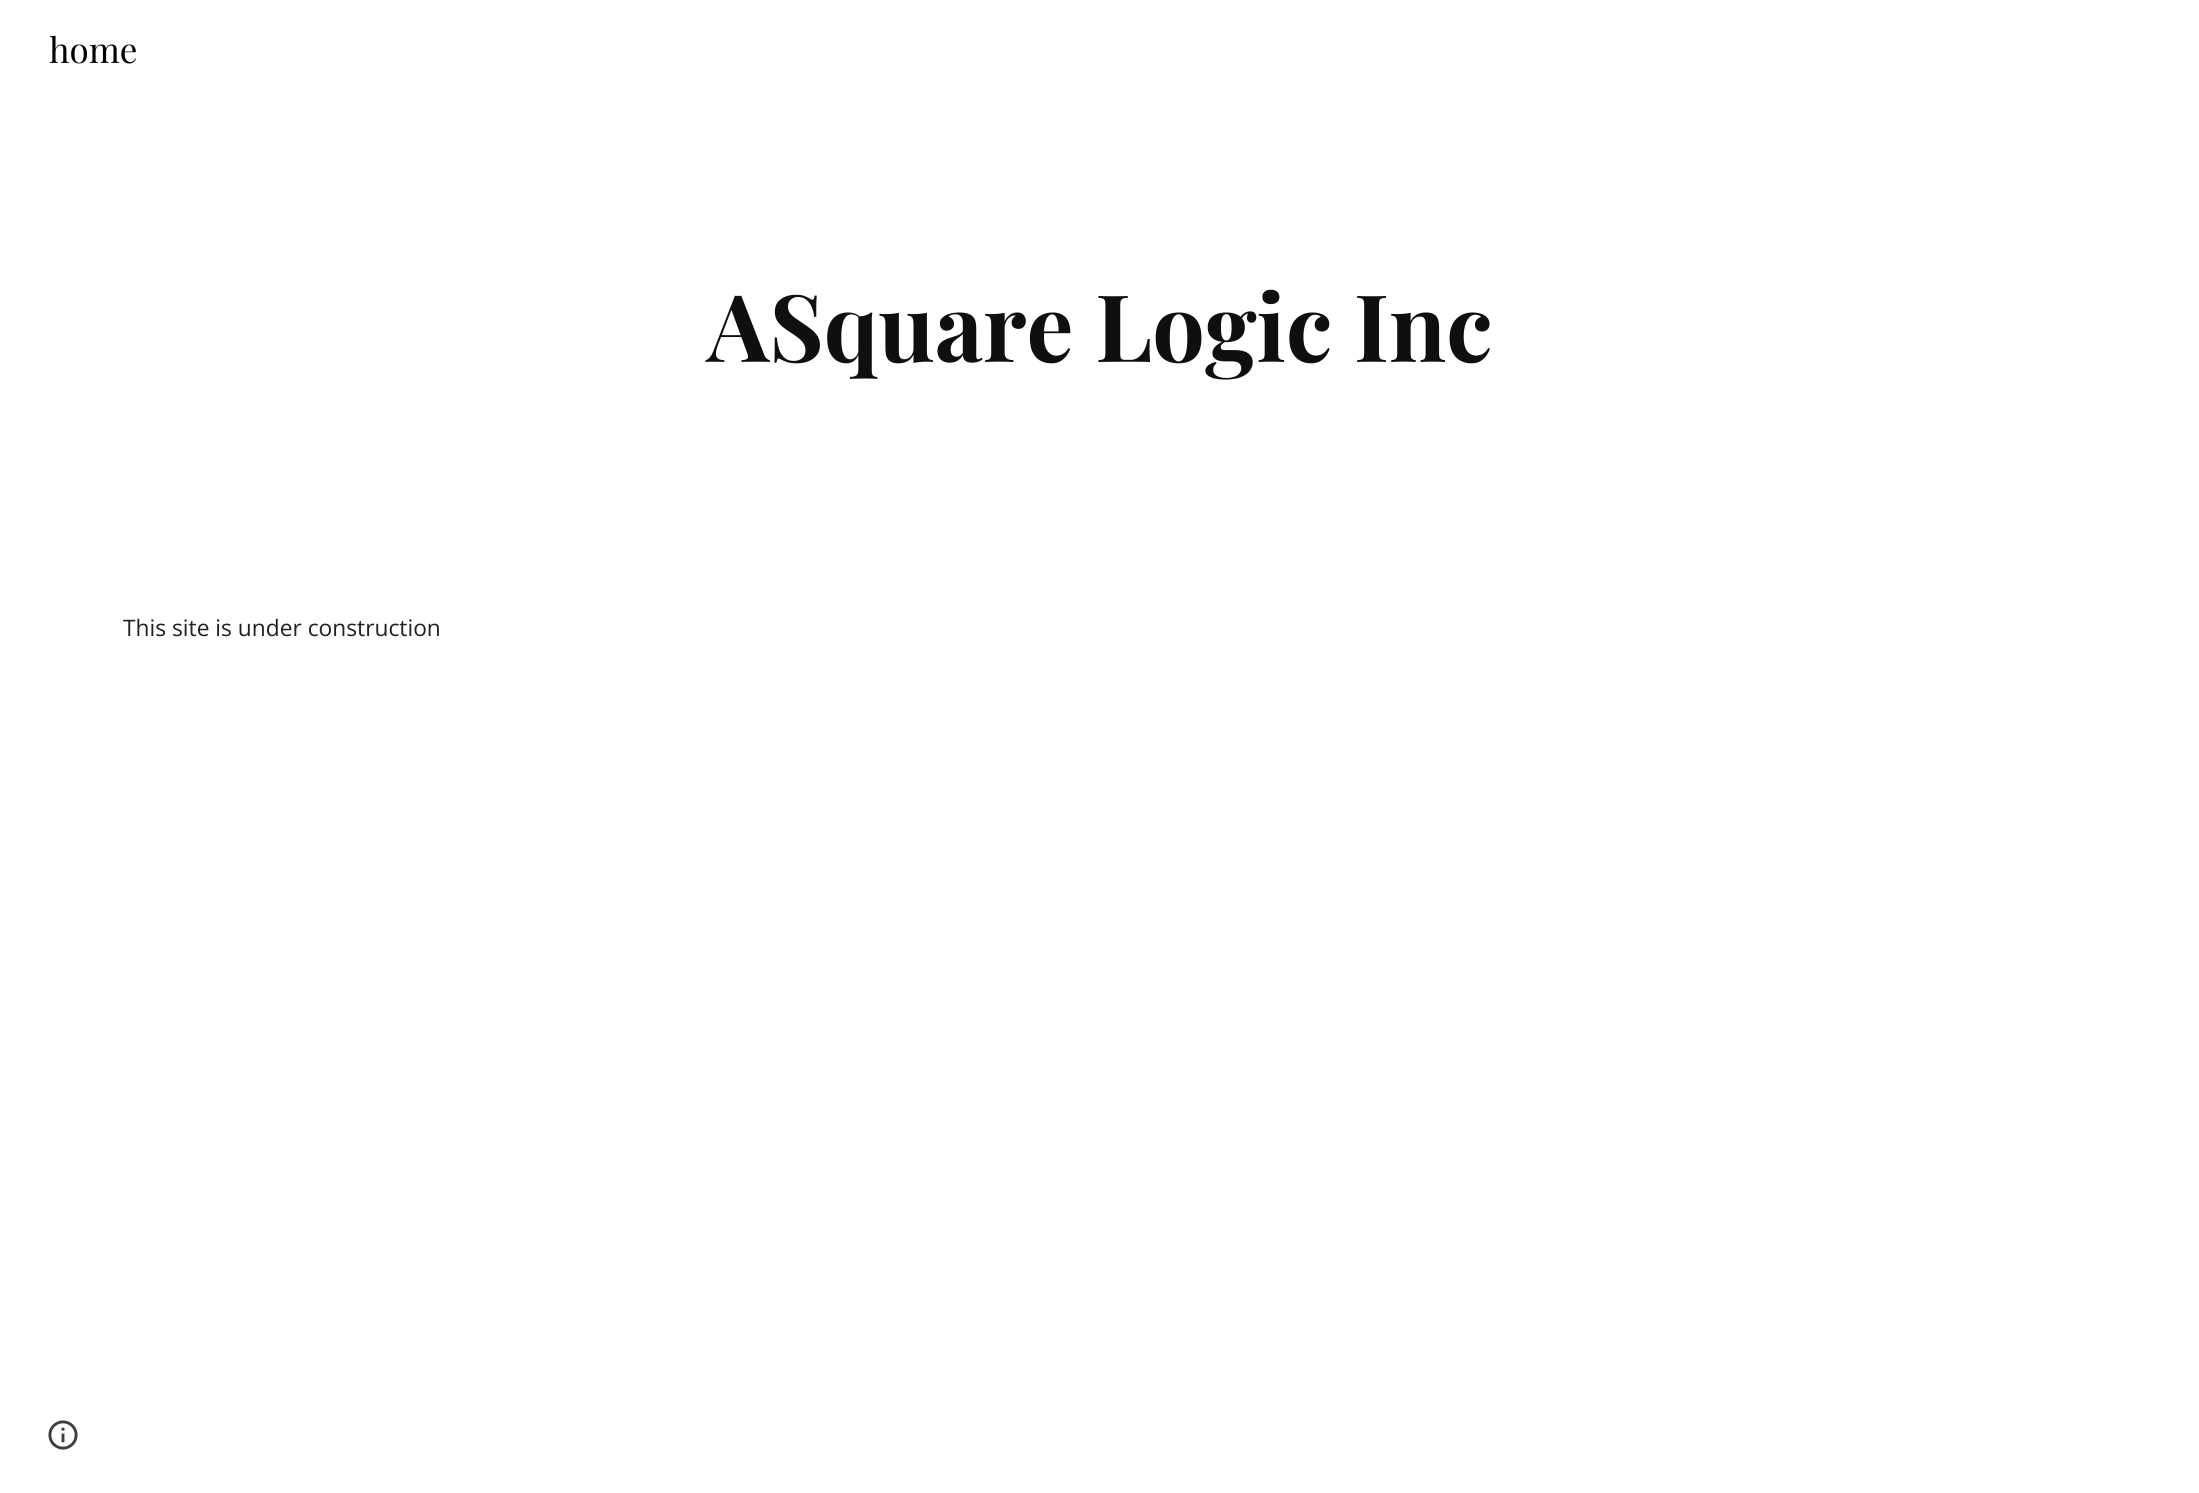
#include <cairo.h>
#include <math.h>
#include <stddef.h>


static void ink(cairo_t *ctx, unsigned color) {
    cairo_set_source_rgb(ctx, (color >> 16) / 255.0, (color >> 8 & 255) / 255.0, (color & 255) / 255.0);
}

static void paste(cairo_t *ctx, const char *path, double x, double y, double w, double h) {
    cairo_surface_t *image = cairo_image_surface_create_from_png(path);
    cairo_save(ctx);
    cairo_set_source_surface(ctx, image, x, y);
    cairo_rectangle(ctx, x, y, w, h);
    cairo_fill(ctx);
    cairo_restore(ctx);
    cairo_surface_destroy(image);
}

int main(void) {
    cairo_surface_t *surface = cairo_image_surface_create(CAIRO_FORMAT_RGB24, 2199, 1493);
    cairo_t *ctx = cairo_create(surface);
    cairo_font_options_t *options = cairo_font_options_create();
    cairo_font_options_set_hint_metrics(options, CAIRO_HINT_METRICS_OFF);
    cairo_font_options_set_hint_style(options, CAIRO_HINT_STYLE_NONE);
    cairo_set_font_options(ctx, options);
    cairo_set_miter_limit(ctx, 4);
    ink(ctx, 0xFFFFFF);
    cairo_paint(ctx);
    cairo_select_font_face(ctx, "Playfair Display", CAIRO_FONT_SLANT_NORMAL, CAIRO_FONT_WEIGHT_NORMAL);
    cairo_set_font_size(ctx, 35);
    ink(ctx, 0x000000);
    cairo_move_to(ctx, 49, 63);
    cairo_show_text(ctx, "home");
    cairo_select_font_face(ctx, "Playfair Display", CAIRO_FONT_SLANT_NORMAL, CAIRO_FONT_WEIGHT_BOLD);
    cairo_set_font_size(ctx, 93.25);
    ink(ctx, 0x0F0F0F);
    cairo_move_to(ctx, 707, 362);
    cairo_show_text(ctx, "ASquare Logic Inc");
    cairo_select_font_face(ctx, "Open Sans", CAIRO_FONT_SLANT_NORMAL, CAIRO_FONT_WEIGHT_NORMAL);
    cairo_set_font_size(ctx, 22.75);
    ink(ctx, 0x212121);
    cairo_move_to(ctx, 123, 636);
    cairo_show_text(ctx, "This site is under construction");
    paste(ctx, "media/1.png", 48, 1420, 30, 30);
    cairo_surface_write_to_png(surface, "image.png");
    cairo_font_options_destroy(options);
    cairo_destroy(ctx);
    cairo_surface_destroy(surface);
    return 0;
}
